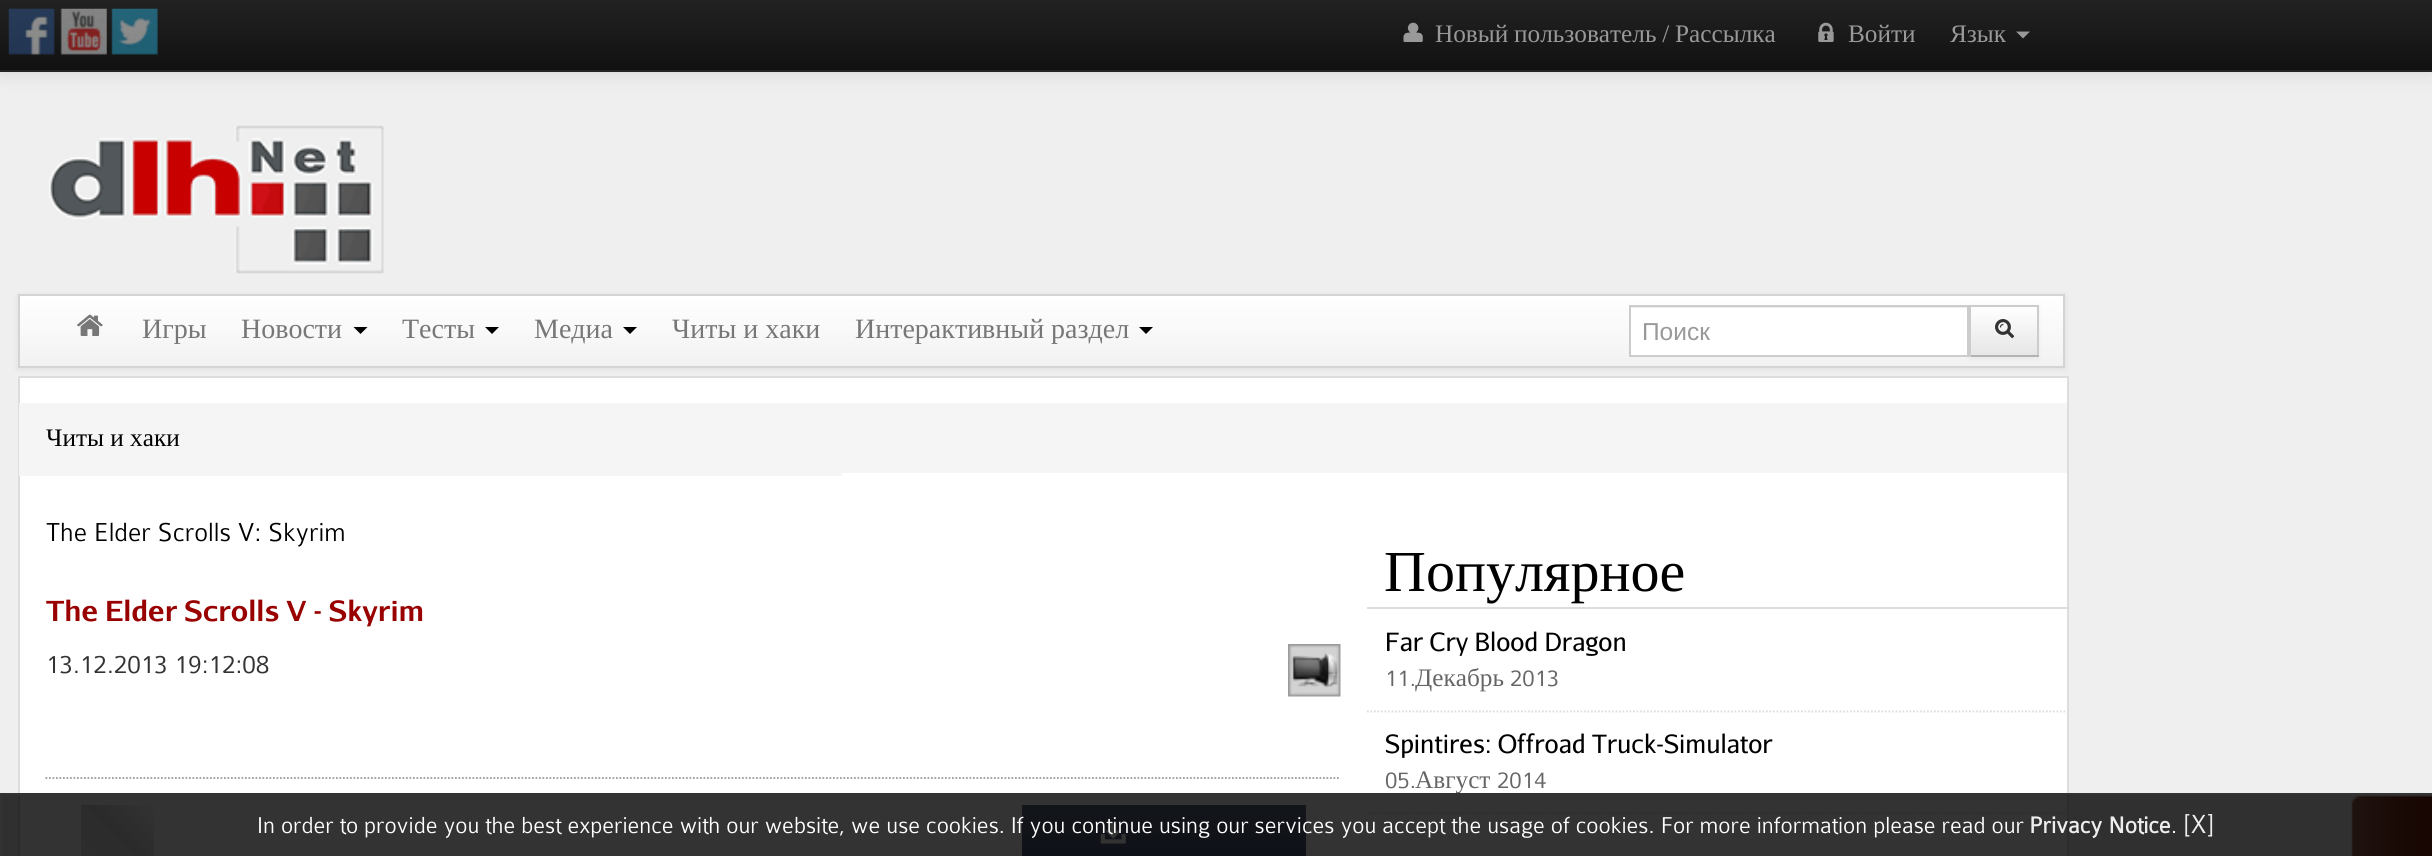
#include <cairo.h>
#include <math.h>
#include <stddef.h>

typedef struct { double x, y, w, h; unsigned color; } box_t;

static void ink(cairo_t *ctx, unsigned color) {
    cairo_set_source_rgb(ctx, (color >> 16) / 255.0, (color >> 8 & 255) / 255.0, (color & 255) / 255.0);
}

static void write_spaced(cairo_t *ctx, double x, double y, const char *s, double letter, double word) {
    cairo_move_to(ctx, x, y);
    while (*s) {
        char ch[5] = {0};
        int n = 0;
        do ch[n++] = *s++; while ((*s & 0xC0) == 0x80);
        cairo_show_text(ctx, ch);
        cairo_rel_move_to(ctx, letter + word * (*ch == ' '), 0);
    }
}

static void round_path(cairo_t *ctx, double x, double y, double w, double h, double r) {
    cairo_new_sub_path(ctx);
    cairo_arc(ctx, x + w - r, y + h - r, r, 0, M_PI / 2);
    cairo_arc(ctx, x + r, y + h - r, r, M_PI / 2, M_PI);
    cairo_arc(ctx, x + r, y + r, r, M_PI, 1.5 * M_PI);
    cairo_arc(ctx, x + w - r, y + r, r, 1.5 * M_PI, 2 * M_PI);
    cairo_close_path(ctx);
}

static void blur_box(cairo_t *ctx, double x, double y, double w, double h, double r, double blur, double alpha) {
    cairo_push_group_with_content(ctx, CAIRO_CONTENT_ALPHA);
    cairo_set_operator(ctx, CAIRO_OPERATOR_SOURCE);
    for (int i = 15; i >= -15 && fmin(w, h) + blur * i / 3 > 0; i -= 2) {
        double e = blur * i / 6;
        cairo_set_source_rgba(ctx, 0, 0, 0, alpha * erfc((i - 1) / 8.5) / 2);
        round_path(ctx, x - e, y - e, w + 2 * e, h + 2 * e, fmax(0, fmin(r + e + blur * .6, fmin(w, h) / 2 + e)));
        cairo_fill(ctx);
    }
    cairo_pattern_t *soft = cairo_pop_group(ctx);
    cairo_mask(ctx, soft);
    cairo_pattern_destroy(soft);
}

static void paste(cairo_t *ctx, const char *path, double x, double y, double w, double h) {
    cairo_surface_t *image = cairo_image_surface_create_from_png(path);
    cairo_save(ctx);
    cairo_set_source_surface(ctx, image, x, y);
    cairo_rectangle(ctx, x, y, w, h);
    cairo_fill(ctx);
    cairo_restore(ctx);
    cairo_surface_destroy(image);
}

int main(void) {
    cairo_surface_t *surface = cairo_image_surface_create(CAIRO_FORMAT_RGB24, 2432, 856);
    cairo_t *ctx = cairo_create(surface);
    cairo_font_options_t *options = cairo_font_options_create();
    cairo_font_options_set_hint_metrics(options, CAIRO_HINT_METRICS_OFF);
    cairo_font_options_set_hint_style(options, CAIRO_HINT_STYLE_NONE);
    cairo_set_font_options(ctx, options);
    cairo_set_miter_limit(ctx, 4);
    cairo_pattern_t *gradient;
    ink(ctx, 0xEFEFEF);
    cairo_paint(ctx);
    ink(ctx, 0x000000);
    blur_box(ctx, 0, 2, 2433, 72, 0, 9, 0.1);
    gradient = cairo_pattern_create_linear(1216, 0, 1216, 70);
    cairo_pattern_add_color_stop_rgba(gradient, 0, 0.133, 0.133, 0.133, 1);
    cairo_pattern_add_color_stop_rgba(gradient, 1, 0.067, 0.067, 0.067, 1);
    cairo_set_source(ctx, gradient);
    cairo_pattern_destroy(gradient);
    cairo_rectangle(ctx, 0, 0, 2432, 70);
    cairo_fill(ctx);
    ink(ctx, 0x252525);
    cairo_rectangle(ctx, 0, 70, 2432, 2);
    cairo_fill(ctx);
    paste(ctx, "media/1.png", 8, 8, 47, 47);
    paste(ctx, "media/2.png", 60, 8, 47, 47);
    paste(ctx, "media/3.png", 111, 8, 47, 47);
    paste(ctx, "media/4.png", 1403, 22, 20, 20);
    cairo_select_font_face(ctx, "Liberation Serif", CAIRO_FONT_SLANT_NORMAL, CAIRO_FONT_WEIGHT_NORMAL);
    cairo_set_font_size(ctx, 25.25);
    ink(ctx, 0x999999);
    write_spaced(ctx, 1435, 42, "Новый пользователь / Рассылка", 0, -0.5);
    paste(ctx, "media/5.png", 1818, 22, 16, 20);
    cairo_move_to(ctx, 1848, 42);
    cairo_show_text(ctx, "Войти");
    cairo_move_to(ctx, 1950, 42);
    cairo_show_text(ctx, "Язык");
    cairo_new_path(ctx);
    cairo_move_to(ctx, 2016, 31.5);
    cairo_line_to(ctx, 2030, 31.5);
    cairo_line_to(ctx, 2023, 38.5);
    cairo_close_path(ctx);
    cairo_fill(ctx);
    paste(ctx, "media/6.png", 49, 125, 335, 149);
    ink(ctx, 0x000000);
    blur_box(ctx, 18, 296, 2047, 73, 0, 3.5, 0.07);
    gradient = cairo_pattern_create_linear(1041, 296, 1041, 366);
    cairo_pattern_add_color_stop_rgba(gradient, 0, 1, 1, 1, 1);
    cairo_pattern_add_color_stop_rgba(gradient, 1, 0.949, 0.949, 0.949, 1);
    cairo_set_source(ctx, gradient);
    cairo_pattern_destroy(gradient);
    cairo_rectangle(ctx, 20, 296, 2043, 70);
    cairo_fill(ctx);
    cairo_rectangle(ctx, 19, 295, 2045, 72);
    ink(ctx, 0xD4D4D4);
    cairo_stroke(ctx);
    paste(ctx, "media/7.png", 77, 314, 26, 22);
    cairo_set_font_size(ctx, 28);
    ink(ctx, 0x777777);
    cairo_move_to(ctx, 142, 338);
    cairo_show_text(ctx, "Игры");
    cairo_move_to(ctx, 241, 338);
    cairo_show_text(ctx, "Новости");
    ink(ctx, 0x000000);
    cairo_new_path(ctx);
    cairo_move_to(ctx, 353.5, 327);
    cairo_line_to(ctx, 367.5, 327);
    cairo_line_to(ctx, 360.5, 334);
    cairo_close_path(ctx);
    cairo_fill(ctx);
    ink(ctx, 0x777777);
    cairo_move_to(ctx, 402, 338);
    cairo_show_text(ctx, "Тесты");
    ink(ctx, 0x000000);
    cairo_new_path(ctx);
    cairo_move_to(ctx, 485, 327);
    cairo_line_to(ctx, 499, 327);
    cairo_line_to(ctx, 492, 334);
    cairo_close_path(ctx);
    cairo_fill(ctx);
    ink(ctx, 0x777777);
    cairo_move_to(ctx, 534, 338);
    cairo_show_text(ctx, "Медиа");
    ink(ctx, 0x000000);
    cairo_new_path(ctx);
    cairo_move_to(ctx, 623, 327);
    cairo_line_to(ctx, 637, 327);
    cairo_line_to(ctx, 630, 334);
    cairo_close_path(ctx);
    cairo_fill(ctx);
    ink(ctx, 0x777777);
    cairo_move_to(ctx, 672, 338);
    cairo_show_text(ctx, "Читы и хаки");
    cairo_move_to(ctx, 855, 338);
    cairo_show_text(ctx, "Интерактивный раздел");
    ink(ctx, 0x000000);
    cairo_new_path(ctx);
    cairo_move_to(ctx, 1139, 327);
    cairo_line_to(ctx, 1153, 327);
    cairo_line_to(ctx, 1146, 334);
    cairo_close_path(ctx);
    cairo_fill(ctx);
    ink(ctx, 0x000000);
    blur_box(ctx, 1969, 306, 70, 53, 0, 2, 0.05);
    ink(ctx, 0xFFFFFF);
    cairo_rectangle(ctx, 1631, 308, 336, 47);
    cairo_fill(ctx);
    ink(ctx, 0xECECEC);
    cairo_rectangle(ctx, 1631, 307, 336, 1);
    cairo_fill(ctx);
    cairo_rectangle(ctx, 1630, 306, 338, 50);
    ink(ctx, 0xCCCCCC);
    cairo_stroke(ctx);
    cairo_select_font_face(ctx, "Liberation Sans", CAIRO_FONT_SLANT_NORMAL, CAIRO_FONT_WEIGHT_NORMAL);
    cairo_set_font_size(ctx, 24.5);
    ink(ctx, 0x999999);
    cairo_move_to(ctx, 1642, 340);
    cairo_show_text(ctx, "Поиск");
    gradient = cairo_pattern_create_linear(2004, 306, 2004, 355);
    cairo_pattern_add_color_stop_rgba(gradient, 0, 1, 1, 1, 1);
    cairo_pattern_add_color_stop_rgba(gradient, 1, 0.902, 0.902, 0.902, 1);
    cairo_set_source(ctx, gradient);
    cairo_pattern_destroy(gradient);
    cairo_rectangle(ctx, 1971, 307, 66, 48);
    cairo_fill(ctx);
    {
        static const box_t items[] = {
            {1969, 305, 70, 2, 0xCCCCCC},
            {2037, 305, 2, 52, 0xCCCCCC},
            {1969, 355, 70, 2, 0xB3B3B3},
            {1969, 305, 2, 52, 0xCCCCCC},
        };
        for (size_t i = 0; i < sizeof items / sizeof *items; i++) {
            ink(ctx, items[i].color);
            cairo_rectangle(ctx, items[i].x, items[i].y, items[i].w, items[i].h);
            cairo_fill(ctx);
        }
    }
    paste(ctx, "media/8.png", 1995, 319, 20, 20);
    ink(ctx, 0xFFFFFF);
    cairo_rectangle(ctx, 19, 377, 2049, 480);
    cairo_fill_preserve(ctx);
    ink(ctx, 0xDDDDDD);
    cairo_stroke(ctx);
    ink(ctx, 0xF5F5F5);
    cairo_rectangle(ctx, 842, 403, 1225, 70);
    cairo_fill(ctx);
    cairo_rectangle(ctx, 19, 403, 823, 73);
    cairo_fill(ctx);
    cairo_select_font_face(ctx, "Liberation Serif", CAIRO_FONT_SLANT_NORMAL, CAIRO_FONT_WEIGHT_NORMAL);
    cairo_set_font_size(ctx, 25.25);
    ink(ctx, 0x000000);
    cairo_move_to(ctx, 46, 446);
    cairo_show_text(ctx, "Читы и хаки");
    cairo_select_font_face(ctx, "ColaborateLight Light", CAIRO_FONT_SLANT_NORMAL, CAIRO_FONT_WEIGHT_NORMAL);
    cairo_set_font_size(ctx, 27.75);
    cairo_move_to(ctx, 46, 541);
    cairo_show_text(ctx, "The Elder Scrolls V: Skyrim");
    cairo_select_font_face(ctx, "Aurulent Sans", CAIRO_FONT_SLANT_NORMAL, CAIRO_FONT_WEIGHT_BOLD);
    ink(ctx, 0x990000);
    cairo_move_to(ctx, 46, 621);
    cairo_show_text(ctx, "The Elder Scrolls V - Skyrim");
    cairo_select_font_face(ctx, "ColaborateLight Light", CAIRO_FONT_SLANT_NORMAL, CAIRO_FONT_WEIGHT_NORMAL);
    ink(ctx, 0x333333);
    cairo_move_to(ctx, 46, 673);
    cairo_show_text(ctx, "13.12.2013 19:12:08");
    paste(ctx, "media/9.png", 1288, 644, 53, 53);
    cairo_new_path(ctx);
    cairo_move_to(ctx, 45.5, 778);
    cairo_line_to(ctx, 1340.5, 778);
    ink(ctx, 0x999999);
    cairo_set_line_width(ctx, 1.8);
    cairo_set_dash(ctx, (double[]){1.75, 1.75}, 2, 0);
    cairo_stroke(ctx);
    gradient = cairo_pattern_create_linear(83, 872, 152, 803);
    cairo_pattern_add_color_stop_rgba(gradient, 0, 0.886, 0.886, 0.886, 1);
    cairo_pattern_add_color_stop_rgba(gradient, 0.5, 0.859, 0.859, 0.859, 1);
    cairo_pattern_add_color_stop_rgba(gradient, 0.51, 0.82, 0.82, 0.82, 1);
    cairo_pattern_add_color_stop_rgba(gradient, 1, 0.996, 0.996, 0.996, 1);
    cairo_set_source(ctx, gradient);
    cairo_pattern_destroy(gradient);
    cairo_rectangle(ctx, 81, 805, 73, 51);
    cairo_fill(ctx);
    gradient = cairo_pattern_create_linear(1164, 805, 1164, 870);
    cairo_pattern_add_color_stop_rgba(gradient, 0, 0.376, 0.424, 0.533, 1);
    cairo_pattern_add_color_stop_rgba(gradient, 1, 0.247, 0.298, 0.42, 1);
    cairo_set_source(ctx, gradient);
    cairo_pattern_destroy(gradient);
    cairo_rectangle(ctx, 1022, 805, 284, 51);
    cairo_fill(ctx);
    paste(ctx, "media/10.png", 1100, 822, 26, 22);
    ink(ctx, 0xDDDDDD);
    cairo_rectangle(ctx, 1367, 607, 700, 2);
    cairo_fill(ctx);
    cairo_select_font_face(ctx, "Liberation Serif", CAIRO_FONT_SLANT_NORMAL, CAIRO_FONT_WEIGHT_NORMAL);
    cairo_set_font_size(ctx, 58);
    ink(ctx, 0x000000);
    cairo_move_to(ctx, 1384, 591);
    cairo_show_text(ctx, "Популярное");
    cairo_new_path(ctx);
    cairo_move_to(ctx, 1367, 711.5);
    cairo_line_to(ctx, 2067, 711.5);
    ink(ctx, 0xDDDDDD);
    cairo_stroke(ctx);
    cairo_select_font_face(ctx, "Aurulent Sans", CAIRO_FONT_SLANT_NORMAL, CAIRO_FONT_WEIGHT_NORMAL);
    cairo_set_font_size(ctx, 25.25);
    ink(ctx, 0x000000);
    cairo_move_to(ctx, 1385, 651);
    cairo_show_text(ctx, "Far Cry Blood Dragon");
    cairo_select_font_face(ctx, "ColaborateLight Light", CAIRO_FONT_SLANT_NORMAL, CAIRO_FONT_WEIGHT_NORMAL);
    ink(ctx, 0x666666);
    cairo_move_to(ctx, 1385, 686);
    cairo_show_text(ctx, "11.");
    cairo_select_font_face(ctx, "Liberation Serif", CAIRO_FONT_SLANT_NORMAL, CAIRO_FONT_WEIGHT_NORMAL);
    cairo_move_to(ctx, 1415, 686);
    cairo_show_text(ctx, "Декабрь");
    cairo_select_font_face(ctx, "ColaborateLight Light", CAIRO_FONT_SLANT_NORMAL, CAIRO_FONT_WEIGHT_NORMAL);
    cairo_move_to(ctx, 1510, 686);
    cairo_show_text(ctx, "2013");
    cairo_new_path(ctx);
    cairo_move_to(ctx, 1367, 813);
    cairo_line_to(ctx, 2067, 813);
    ink(ctx, 0xDDDDDD);
    cairo_stroke(ctx);
    cairo_select_font_face(ctx, "Aurulent Sans", CAIRO_FONT_SLANT_NORMAL, CAIRO_FONT_WEIGHT_NORMAL);
    ink(ctx, 0x000000);
    cairo_move_to(ctx, 1385, 753);
    cairo_show_text(ctx, "Spintires: Offroad Truck-Simulator");
    cairo_select_font_face(ctx, "ColaborateLight Light", CAIRO_FONT_SLANT_NORMAL, CAIRO_FONT_WEIGHT_NORMAL);
    ink(ctx, 0x666666);
    cairo_move_to(ctx, 1385, 788);
    cairo_show_text(ctx, "05.");
    cairo_select_font_face(ctx, "Liberation Serif", CAIRO_FONT_SLANT_NORMAL, CAIRO_FONT_WEIGHT_NORMAL);
    cairo_move_to(ctx, 1415, 788);
    cairo_show_text(ctx, "Август");
    cairo_select_font_face(ctx, "ColaborateLight Light", CAIRO_FONT_SLANT_NORMAL, CAIRO_FONT_WEIGHT_NORMAL);
    cairo_move_to(ctx, 1497, 788);
    cairo_show_text(ctx, "2014");
    paste(ctx, "media/11.png", 2351, 795, 81, 61);
    cairo_set_source_rgba(ctx, 0, 0, 0, 0.8);
    cairo_rectangle(ctx, 1, 794, 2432, 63);
    cairo_fill_preserve(ctx);
    ink(ctx, 0x333333);
    cairo_set_line_width(ctx, 2);
    cairo_set_dash(ctx, NULL, 0, 0);
    cairo_stroke(ctx);
    cairo_set_font_size(ctx, 24.5);
    ink(ctx, 0xFFFFFF);
    cairo_move_to(ctx, 257, 833);
    cairo_show_text(ctx, "In order to provide you the best experience with our website, we use cookies. If you continue using our services you accept the usage of cookies. For more information please read our");
    cairo_select_font_face(ctx, "ColaborateLight", CAIRO_FONT_SLANT_NORMAL, CAIRO_FONT_WEIGHT_BOLD);
    ink(ctx, 0xEEEEEE);
    cairo_move_to(ctx, 2029, 833);
    cairo_show_text(ctx, "Privacy Notice");
    cairo_select_font_face(ctx, "ColaborateLight Light", CAIRO_FONT_SLANT_NORMAL, CAIRO_FONT_WEIGHT_NORMAL);
    ink(ctx, 0xFFFFFF);
    cairo_move_to(ctx, 2171, 833);
    cairo_show_text(ctx, ".");
    cairo_set_font_size(ctx, 28);
    ink(ctx, 0xEEEEEE);
    cairo_move_to(ctx, 2183, 833);
    cairo_show_text(ctx, "[X]");
    cairo_surface_write_to_png(surface, "image.png");
    cairo_font_options_destroy(options);
    cairo_destroy(ctx);
    cairo_surface_destroy(surface);
    return 0;
}
